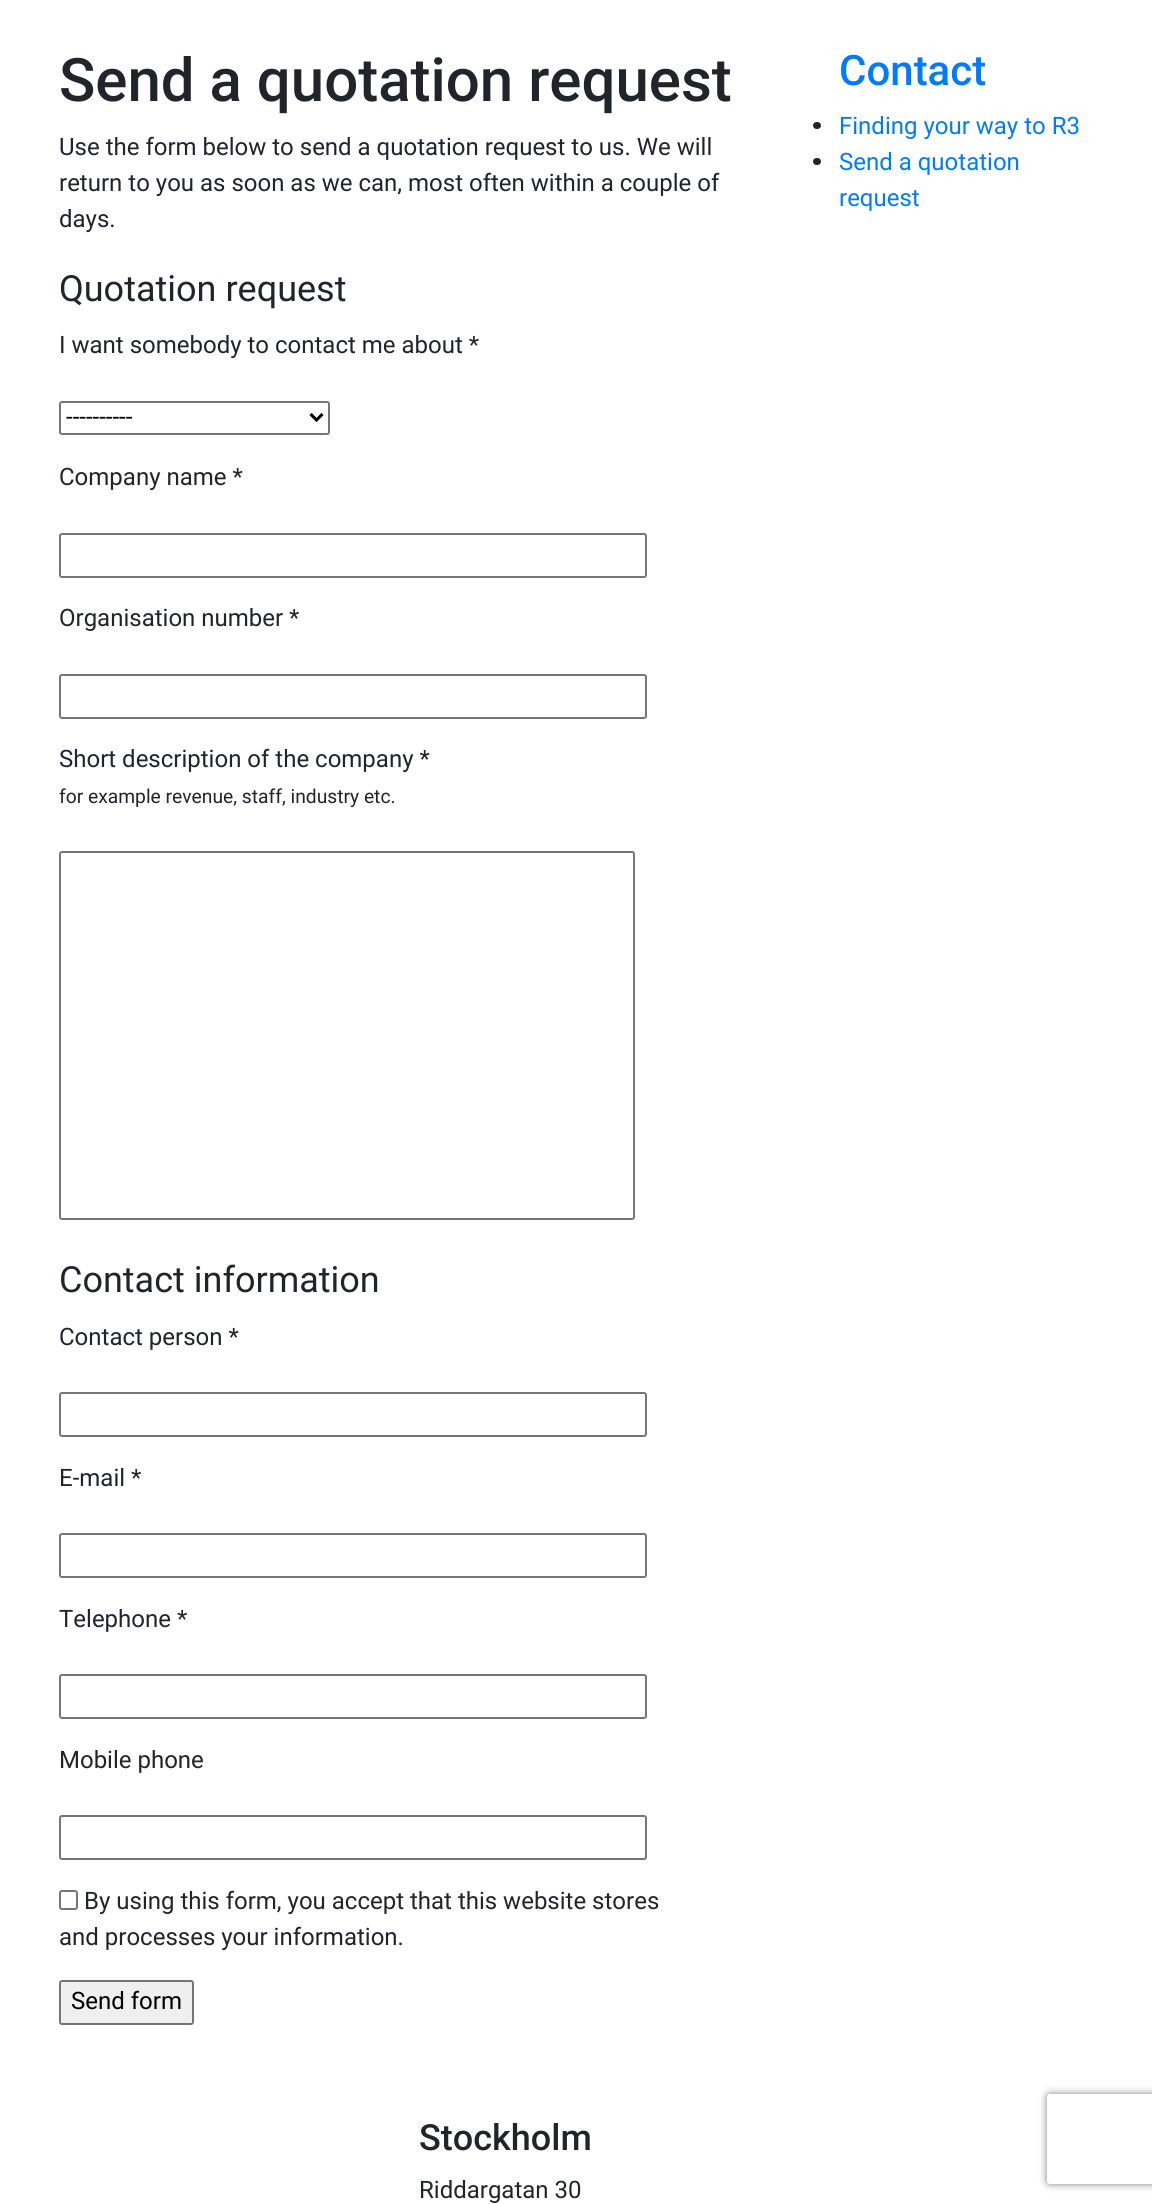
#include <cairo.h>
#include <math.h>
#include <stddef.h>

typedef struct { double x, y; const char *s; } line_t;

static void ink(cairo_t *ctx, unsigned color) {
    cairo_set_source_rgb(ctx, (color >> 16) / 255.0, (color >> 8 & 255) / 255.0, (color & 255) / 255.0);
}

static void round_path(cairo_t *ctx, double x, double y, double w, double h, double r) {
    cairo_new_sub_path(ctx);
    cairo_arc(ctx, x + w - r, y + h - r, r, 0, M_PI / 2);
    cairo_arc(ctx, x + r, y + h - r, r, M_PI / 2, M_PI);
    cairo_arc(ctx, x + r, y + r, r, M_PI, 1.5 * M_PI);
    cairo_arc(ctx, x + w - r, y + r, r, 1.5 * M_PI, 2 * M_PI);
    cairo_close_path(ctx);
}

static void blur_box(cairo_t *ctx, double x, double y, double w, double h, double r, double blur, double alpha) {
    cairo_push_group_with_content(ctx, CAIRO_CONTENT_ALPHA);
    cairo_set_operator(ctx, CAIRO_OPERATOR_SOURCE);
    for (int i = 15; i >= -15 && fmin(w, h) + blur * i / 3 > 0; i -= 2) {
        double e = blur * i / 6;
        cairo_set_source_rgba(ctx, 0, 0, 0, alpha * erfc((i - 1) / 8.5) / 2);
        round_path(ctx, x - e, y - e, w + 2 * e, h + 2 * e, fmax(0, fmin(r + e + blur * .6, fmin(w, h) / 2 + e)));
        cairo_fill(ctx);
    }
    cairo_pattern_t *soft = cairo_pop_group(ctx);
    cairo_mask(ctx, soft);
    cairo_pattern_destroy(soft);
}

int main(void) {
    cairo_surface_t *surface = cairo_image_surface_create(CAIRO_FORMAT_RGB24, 1152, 2204);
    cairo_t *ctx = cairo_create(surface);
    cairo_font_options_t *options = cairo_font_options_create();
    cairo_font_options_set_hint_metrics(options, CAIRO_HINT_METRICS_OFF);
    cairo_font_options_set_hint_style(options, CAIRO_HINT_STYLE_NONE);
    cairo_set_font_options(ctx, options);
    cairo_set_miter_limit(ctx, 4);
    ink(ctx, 0xFFFFFF);
    cairo_paint(ctx);
    cairo_select_font_face(ctx, "Roboto Medium", CAIRO_FONT_SLANT_NORMAL, CAIRO_FONT_WEIGHT_NORMAL);
    cairo_set_font_size(ctx, 60);
    ink(ctx, 0x212529);
    cairo_move_to(ctx, 59, 101);
    cairo_show_text(ctx, "Send a quotation request");
    cairo_select_font_face(ctx, "Roboto", CAIRO_FONT_SLANT_NORMAL, CAIRO_FONT_WEIGHT_NORMAL);
    cairo_set_font_size(ctx, 24);
    {
        static const line_t items[] = {
            {59, 155, "Use the form below to send a quotation request to us. We will"},
            {59, 191, "return to you as soon as we can, most often within a couple of"},
            {59, 227, "days."},
        };
        for (size_t i = 0; i < sizeof items / sizeof *items; i++) {
            cairo_move_to(ctx, items[i].x, items[i].y);
            cairo_show_text(ctx, items[i].s);
        }
    }
    cairo_set_font_size(ctx, 36);
    cairo_move_to(ctx, 59, 301);
    cairo_show_text(ctx, "Quotation request");
    cairo_set_font_size(ctx, 24);
    cairo_move_to(ctx, 59, 353);
    cairo_show_text(ctx, "I want somebody to contact me about *");
    round_path(ctx, 60, 402, 269, 32, 2);
    ink(ctx, 0x767676);
    cairo_stroke(ctx);
    cairo_new_path(ctx);
    cairo_move_to(ctx, 310.5, 414);
    cairo_line_to(ctx, 316.5, 420);
    cairo_line_to(ctx, 322.5, 414);
    ink(ctx, 0x000000);
    cairo_set_line_width(ctx, 3);
    cairo_stroke(ctx);
    cairo_move_to(ctx, 66, 425);
    cairo_show_text(ctx, "----------");
    ink(ctx, 0x212529);
    cairo_move_to(ctx, 59, 485);
    cairo_show_text(ctx, "Company name *");
    round_path(ctx, 60, 534, 586, 43, 2);
    ink(ctx, 0x767676);
    cairo_set_line_width(ctx, 2);
    cairo_stroke(ctx);
    ink(ctx, 0x212529);
    cairo_move_to(ctx, 59, 626);
    cairo_show_text(ctx, "Organisation number *");
    round_path(ctx, 60, 675, 586, 43, 2);
    ink(ctx, 0x767676);
    cairo_stroke(ctx);
    ink(ctx, 0x212529);
    cairo_move_to(ctx, 59, 767);
    cairo_show_text(ctx, "Short description of the company *");
    cairo_set_font_size(ctx, 19.25);
    cairo_move_to(ctx, 59, 803);
    cairo_show_text(ctx, "for example revenue, staff, industry etc.");
    round_path(ctx, 60, 852, 574, 367, 2);
    ink(ctx, 0x767676);
    cairo_stroke(ctx);
    cairo_set_font_size(ctx, 36);
    ink(ctx, 0x212529);
    cairo_move_to(ctx, 59, 1292);
    cairo_show_text(ctx, "Contact information");
    cairo_set_font_size(ctx, 24);
    cairo_move_to(ctx, 59, 1345);
    cairo_show_text(ctx, "Contact person *");
    round_path(ctx, 60, 1393, 586, 43, 2);
    ink(ctx, 0x767676);
    cairo_stroke(ctx);
    ink(ctx, 0x212529);
    cairo_move_to(ctx, 59, 1486);
    cairo_show_text(ctx, "E-mail *");
    round_path(ctx, 60, 1534, 586, 43, 2);
    ink(ctx, 0x767676);
    cairo_stroke(ctx);
    ink(ctx, 0x212529);
    cairo_move_to(ctx, 59, 1627);
    cairo_show_text(ctx, "Telephone *");
    round_path(ctx, 60, 1675, 586, 43, 2);
    ink(ctx, 0x767676);
    cairo_stroke(ctx);
    ink(ctx, 0x212529);
    cairo_move_to(ctx, 59, 1768);
    cairo_show_text(ctx, "Mobile phone");
    round_path(ctx, 60, 1816, 586, 43, 2);
    ink(ctx, 0x767676);
    cairo_stroke(ctx);
    round_path(ctx, 60, 1891, 17, 18, 2);
    cairo_stroke(ctx);
    ink(ctx, 0x212529);
    cairo_move_to(ctx, 84, 1909);
    cairo_show_text(ctx, "By using this form, you accept that this website stores");
    cairo_move_to(ctx, 59, 1945);
    cairo_show_text(ctx, "and processes your information.");
    ink(ctx, 0xEFEFEF);
    round_path(ctx, 60, 1981, 133, 43, 2);
    cairo_fill_preserve(ctx);
    ink(ctx, 0x767676);
    cairo_stroke(ctx);
    ink(ctx, 0x000000);
    cairo_move_to(ctx, 71, 2009);
    cairo_show_text(ctx, "Send form");
    cairo_select_font_face(ctx, "Roboto Medium", CAIRO_FONT_SLANT_NORMAL, CAIRO_FONT_WEIGHT_NORMAL);
    cairo_set_font_size(ctx, 42);
    ink(ctx, 0x007BFF);
    cairo_move_to(ctx, 839, 85);
    cairo_show_text(ctx, "Contact");
    ink(ctx, 0x212529);
    round_path(ctx, 813, 122, 8, 7, 3.5);
    cairo_fill(ctx);
    cairo_select_font_face(ctx, "Roboto", CAIRO_FONT_SLANT_NORMAL, CAIRO_FONT_WEIGHT_NORMAL);
    cairo_set_font_size(ctx, 24);
    ink(ctx, 0x007BFF);
    cairo_move_to(ctx, 839, 134);
    cairo_show_text(ctx, "Finding your way to R3");
    ink(ctx, 0x212529);
    round_path(ctx, 813, 158, 8, 7, 3.5);
    cairo_fill(ctx);
    ink(ctx, 0x007BFF);
    cairo_move_to(ctx, 839, 170);
    cairo_show_text(ctx, "Send a quotation");
    cairo_move_to(ctx, 839, 206);
    cairo_show_text(ctx, "request");
    cairo_select_font_face(ctx, "Roboto Medium", CAIRO_FONT_SLANT_NORMAL, CAIRO_FONT_WEIGHT_NORMAL);
    cairo_set_font_size(ctx, 36);
    ink(ctx, 0x212529);
    cairo_move_to(ctx, 419, 2150);
    cairo_show_text(ctx, "Stockholm");
    cairo_select_font_face(ctx, "Roboto", CAIRO_FONT_SLANT_NORMAL, CAIRO_FONT_WEIGHT_NORMAL);
    cairo_set_font_size(ctx, 24);
    cairo_move_to(ctx, 419, 2198);
    cairo_show_text(ctx, "Riddargatan 30");
    cairo_save(ctx);
    cairo_set_fill_rule(ctx, CAIRO_FILL_RULE_EVEN_ODD);
    cairo_new_path(ctx);
    cairo_move_to(ctx, 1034, 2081);
    cairo_line_to(ctx, 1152, 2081);
    cairo_line_to(ctx, 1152, 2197);
    cairo_line_to(ctx, 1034, 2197);
    cairo_close_path(ctx);
    cairo_move_to(ctx, 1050, 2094);
    cairo_line_to(ctx, 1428, 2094);
    cairo_curve_to(ctx, 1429.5, 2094, 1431, 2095.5, 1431, 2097);
    cairo_line_to(ctx, 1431, 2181);
    cairo_curve_to(ctx, 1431, 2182.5, 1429.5, 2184, 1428, 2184);
    cairo_line_to(ctx, 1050, 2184);
    cairo_curve_to(ctx, 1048.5, 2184, 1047, 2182.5, 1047, 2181);
    cairo_line_to(ctx, 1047, 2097);
    cairo_curve_to(ctx, 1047, 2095.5, 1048.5, 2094, 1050, 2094);
    cairo_close_path(ctx);
    cairo_clip(ctx);
    ink(ctx, 0x808080);
    blur_box(ctx, 1047, 2094, 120, 90, 3, 4, 1);
    cairo_restore(ctx);
    cairo_surface_write_to_png(surface, "image.png");
    cairo_font_options_destroy(options);
    cairo_destroy(ctx);
    cairo_surface_destroy(surface);
    return 0;
}
